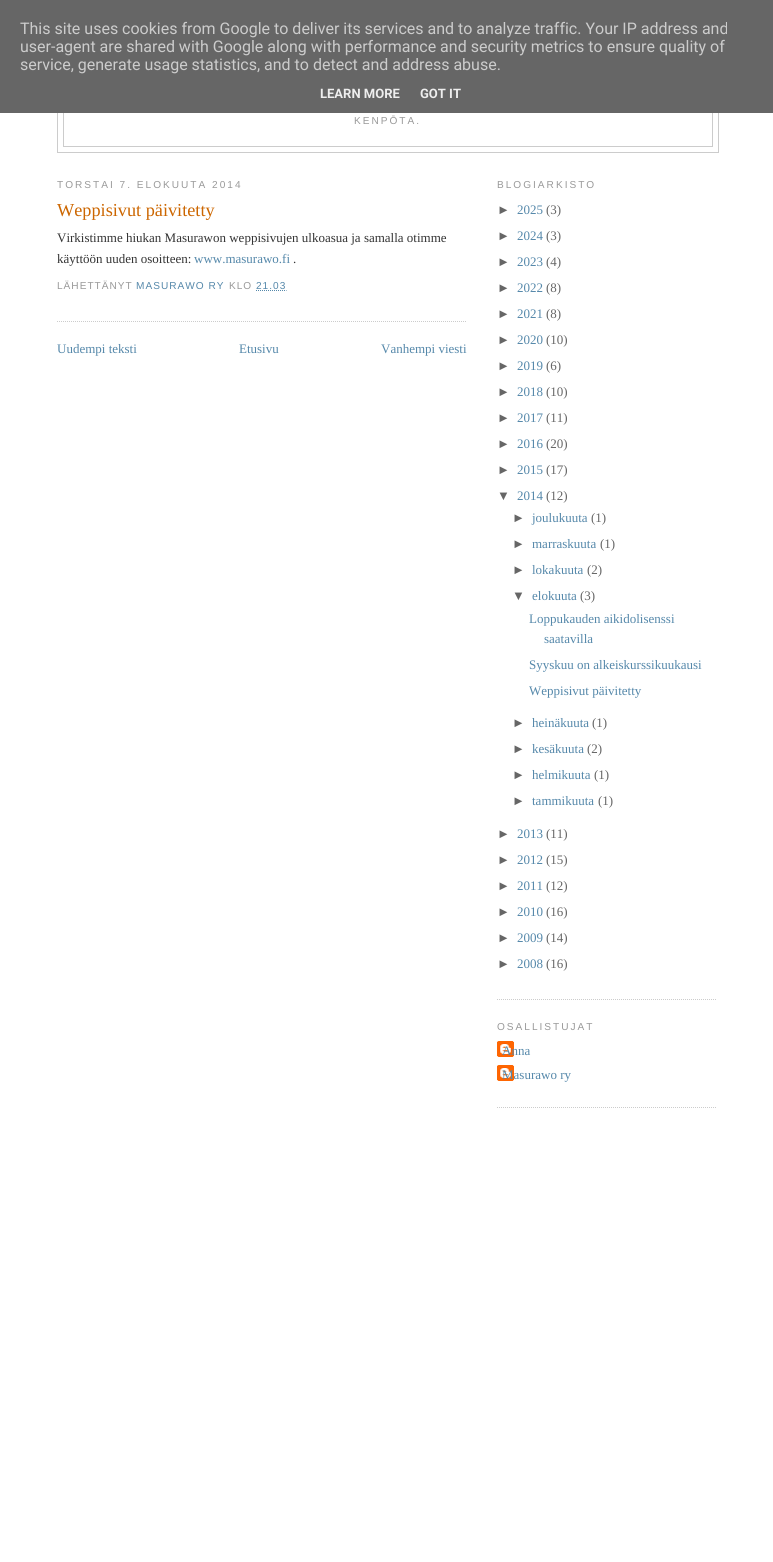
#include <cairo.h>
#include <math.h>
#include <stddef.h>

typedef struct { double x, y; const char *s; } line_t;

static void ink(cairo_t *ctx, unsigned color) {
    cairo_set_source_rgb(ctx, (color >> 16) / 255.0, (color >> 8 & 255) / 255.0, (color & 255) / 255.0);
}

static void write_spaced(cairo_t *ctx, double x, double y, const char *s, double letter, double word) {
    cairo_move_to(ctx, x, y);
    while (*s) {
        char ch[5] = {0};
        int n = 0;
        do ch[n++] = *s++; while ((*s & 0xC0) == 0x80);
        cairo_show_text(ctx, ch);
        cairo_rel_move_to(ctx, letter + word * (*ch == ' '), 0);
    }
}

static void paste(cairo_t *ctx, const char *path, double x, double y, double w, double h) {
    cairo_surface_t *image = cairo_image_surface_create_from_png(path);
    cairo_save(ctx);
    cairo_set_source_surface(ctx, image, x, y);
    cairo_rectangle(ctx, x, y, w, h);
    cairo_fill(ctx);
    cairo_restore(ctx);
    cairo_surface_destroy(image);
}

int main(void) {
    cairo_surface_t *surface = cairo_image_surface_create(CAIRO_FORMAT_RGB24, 773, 1562);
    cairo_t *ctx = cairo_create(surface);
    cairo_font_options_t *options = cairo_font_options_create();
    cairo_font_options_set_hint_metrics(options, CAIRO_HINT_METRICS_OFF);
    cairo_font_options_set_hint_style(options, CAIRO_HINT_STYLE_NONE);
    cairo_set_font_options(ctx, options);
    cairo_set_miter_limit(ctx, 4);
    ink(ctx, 0xFFFFFF);
    cairo_paint(ctx);
    cairo_rectangle(ctx, 57.5, 40.5, 661, 112);
    ink(ctx, 0xCCCCCC);
    cairo_set_line_width(ctx, 1);
    cairo_stroke(ctx);
    cairo_rectangle(ctx, 63.5, 46.5, 649, 100);
    cairo_stroke(ctx);
    ink(ctx, 0x666666);
    cairo_rectangle(ctx, 0, 0, 773, 113);
    cairo_fill(ctx);
    cairo_select_font_face(ctx, "Roboto", CAIRO_FONT_SLANT_NORMAL, CAIRO_FONT_WEIGHT_NORMAL);
    cairo_set_font_size(ctx, 16);
    ink(ctx, 0xCCCCCC);
    {
        static const line_t items[] = {
            {20, 34, "This site uses cookies from Google to deliver its services and to analyze traffic. Your IP address and"},
            {20, 52, "user-agent are shared with Google along with performance and security metrics to ensure quality of"},
            {20, 70, "service, generate usage statistics, and to detect and address abuse."},
        };
        for (size_t i = 0; i < sizeof items / sizeof *items; i++) {
            cairo_move_to(ctx, items[i].x, items[i].y);
            cairo_show_text(ctx, items[i].s);
        }
    }
    cairo_select_font_face(ctx, "Roboto", CAIRO_FONT_SLANT_NORMAL, CAIRO_FONT_WEIGHT_BOLD);
    cairo_set_font_size(ctx, 13);
    ink(ctx, 0xEEEEEE);
    cairo_move_to(ctx, 320, 98);
    cairo_show_text(ctx, "LEARN MORE");
    cairo_move_to(ctx, 420, 98);
    cairo_show_text(ctx, "GOT IT");
    cairo_select_font_face(ctx, "Liberation Sans", CAIRO_FONT_SLANT_NORMAL, CAIRO_FONT_WEIGHT_NORMAL);
    cairo_set_font_size(ctx, 10.1);
    ink(ctx, 0x999999);
    write_spaced(ctx, 354, 124, "KENPŌTA.", 2, 0);
    write_spaced(ctx, 57, 188, "TORSTAI 7. ELOKUUTA 2014", 2, 0);
    cairo_new_path(ctx);
    cairo_move_to(ctx, 57, 321.5);
    cairo_line_to(ctx, 467, 321.5);
    ink(ctx, 0xCCCCCC);
    cairo_set_dash(ctx, (double[]){1, 1}, 2, 0);
    cairo_stroke(ctx);
    cairo_select_font_face(ctx, "Liberation Serif", CAIRO_FONT_SLANT_NORMAL, CAIRO_FONT_WEIGHT_NORMAL);
    cairo_set_font_size(ctx, 18.25);
    ink(ctx, 0xCC6600);
    cairo_move_to(ctx, 57, 216);
    cairo_show_text(ctx, "Weppisivut päivitetty");
    cairo_set_font_size(ctx, 13);
    ink(ctx, 0x333333);
    cairo_move_to(ctx, 57, 242);
    cairo_show_text(ctx, "Virkistimme hiukan Masurawon weppisivujen ulkoasua ja samalla otimme");
    cairo_move_to(ctx, 57, 263);
    cairo_show_text(ctx, "käyttöön uuden osoitteen:");
    ink(ctx, 0x5588AA);
    cairo_move_to(ctx, 194, 263);
    cairo_show_text(ctx, "www.masurawo.fi");
    ink(ctx, 0x333333);
    cairo_move_to(ctx, 293, 263);
    cairo_show_text(ctx, ".");
    cairo_select_font_face(ctx, "Liberation Sans", CAIRO_FONT_SLANT_NORMAL, CAIRO_FONT_WEIGHT_NORMAL);
    cairo_set_font_size(ctx, 10.1);
    ink(ctx, 0x999999);
    write_spaced(ctx, 57, 289, "LÄHETTÄNYT", 1, 0);
    ink(ctx, 0x5588AA);
    write_spaced(ctx, 136, 289, "MASURAWO RY", 1, 0);
    ink(ctx, 0x999999);
    write_spaced(ctx, 229, 289, "KLO", 1, 0);
    ink(ctx, 0x5588AA);
    write_spaced(ctx, 256, 289, "21.03", 1, 0);
    cairo_new_path(ctx);
    cairo_move_to(ctx, 256, 290.5);
    cairo_line_to(ctx, 286.5, 290.5);
    cairo_stroke(ctx);
    cairo_select_font_face(ctx, "Liberation Serif", CAIRO_FONT_SLANT_NORMAL, CAIRO_FONT_WEIGHT_NORMAL);
    cairo_set_font_size(ctx, 13);
    {
        static const line_t items[] = {
            {57, 353, "Uudempi teksti"},
            {239, 353, "Etusivu"},
            {381, 353, "Vanhempi viesti"},
        };
        for (size_t i = 0; i < sizeof items / sizeof *items; i++) {
            cairo_move_to(ctx, items[i].x, items[i].y);
            cairo_show_text(ctx, items[i].s);
        }
    }
    cairo_new_path(ctx);
    cairo_move_to(ctx, 497, 999.5);
    cairo_line_to(ctx, 717, 999.5);
    ink(ctx, 0xCCCCCC);
    cairo_stroke(ctx);
    cairo_select_font_face(ctx, "Liberation Sans", CAIRO_FONT_SLANT_NORMAL, CAIRO_FONT_WEIGHT_NORMAL);
    cairo_set_font_size(ctx, 10.1);
    ink(ctx, 0x999999);
    write_spaced(ctx, 497, 188, "BLOGIARKISTO", 2, 0);
    cairo_set_font_size(ctx, 13);
    ink(ctx, 0x666666);
    cairo_move_to(ctx, 497, 214);
    cairo_show_text(ctx, "►");
    cairo_select_font_face(ctx, "Liberation Serif", CAIRO_FONT_SLANT_NORMAL, CAIRO_FONT_WEIGHT_NORMAL);
    ink(ctx, 0x5588AA);
    cairo_move_to(ctx, 517, 214);
    cairo_show_text(ctx, "2025");
    ink(ctx, 0x666666);
    cairo_move_to(ctx, 546, 214);
    cairo_show_text(ctx, "(3)");
    cairo_select_font_face(ctx, "Liberation Sans", CAIRO_FONT_SLANT_NORMAL, CAIRO_FONT_WEIGHT_NORMAL);
    cairo_move_to(ctx, 497, 240);
    cairo_show_text(ctx, "►");
    cairo_select_font_face(ctx, "Liberation Serif", CAIRO_FONT_SLANT_NORMAL, CAIRO_FONT_WEIGHT_NORMAL);
    ink(ctx, 0x5588AA);
    cairo_move_to(ctx, 517, 240);
    cairo_show_text(ctx, "2024");
    ink(ctx, 0x666666);
    cairo_move_to(ctx, 546, 240);
    cairo_show_text(ctx, "(3)");
    cairo_select_font_face(ctx, "Liberation Sans", CAIRO_FONT_SLANT_NORMAL, CAIRO_FONT_WEIGHT_NORMAL);
    cairo_move_to(ctx, 497, 266);
    cairo_show_text(ctx, "►");
    cairo_select_font_face(ctx, "Liberation Serif", CAIRO_FONT_SLANT_NORMAL, CAIRO_FONT_WEIGHT_NORMAL);
    ink(ctx, 0x5588AA);
    cairo_move_to(ctx, 517, 266);
    cairo_show_text(ctx, "2023");
    ink(ctx, 0x666666);
    cairo_move_to(ctx, 546, 266);
    cairo_show_text(ctx, "(4)");
    cairo_select_font_face(ctx, "Liberation Sans", CAIRO_FONT_SLANT_NORMAL, CAIRO_FONT_WEIGHT_NORMAL);
    cairo_move_to(ctx, 497, 292);
    cairo_show_text(ctx, "►");
    cairo_select_font_face(ctx, "Liberation Serif", CAIRO_FONT_SLANT_NORMAL, CAIRO_FONT_WEIGHT_NORMAL);
    ink(ctx, 0x5588AA);
    cairo_move_to(ctx, 517, 292);
    cairo_show_text(ctx, "2022");
    ink(ctx, 0x666666);
    cairo_move_to(ctx, 546, 292);
    cairo_show_text(ctx, "(8)");
    cairo_select_font_face(ctx, "Liberation Sans", CAIRO_FONT_SLANT_NORMAL, CAIRO_FONT_WEIGHT_NORMAL);
    cairo_move_to(ctx, 497, 318);
    cairo_show_text(ctx, "►");
    cairo_select_font_face(ctx, "Liberation Serif", CAIRO_FONT_SLANT_NORMAL, CAIRO_FONT_WEIGHT_NORMAL);
    ink(ctx, 0x5588AA);
    cairo_move_to(ctx, 517, 318);
    cairo_show_text(ctx, "2021");
    ink(ctx, 0x666666);
    cairo_move_to(ctx, 546, 318);
    cairo_show_text(ctx, "(8)");
    cairo_select_font_face(ctx, "Liberation Sans", CAIRO_FONT_SLANT_NORMAL, CAIRO_FONT_WEIGHT_NORMAL);
    cairo_move_to(ctx, 497, 344);
    cairo_show_text(ctx, "►");
    cairo_select_font_face(ctx, "Liberation Serif", CAIRO_FONT_SLANT_NORMAL, CAIRO_FONT_WEIGHT_NORMAL);
    ink(ctx, 0x5588AA);
    cairo_move_to(ctx, 517, 344);
    cairo_show_text(ctx, "2020");
    ink(ctx, 0x666666);
    cairo_move_to(ctx, 546, 344);
    cairo_show_text(ctx, "(10)");
    cairo_select_font_face(ctx, "Liberation Sans", CAIRO_FONT_SLANT_NORMAL, CAIRO_FONT_WEIGHT_NORMAL);
    cairo_move_to(ctx, 497, 370);
    cairo_show_text(ctx, "►");
    cairo_select_font_face(ctx, "Liberation Serif", CAIRO_FONT_SLANT_NORMAL, CAIRO_FONT_WEIGHT_NORMAL);
    ink(ctx, 0x5588AA);
    cairo_move_to(ctx, 517, 370);
    cairo_show_text(ctx, "2019");
    ink(ctx, 0x666666);
    cairo_move_to(ctx, 546, 370);
    cairo_show_text(ctx, "(6)");
    cairo_select_font_face(ctx, "Liberation Sans", CAIRO_FONT_SLANT_NORMAL, CAIRO_FONT_WEIGHT_NORMAL);
    cairo_move_to(ctx, 497, 396);
    cairo_show_text(ctx, "►");
    cairo_select_font_face(ctx, "Liberation Serif", CAIRO_FONT_SLANT_NORMAL, CAIRO_FONT_WEIGHT_NORMAL);
    ink(ctx, 0x5588AA);
    cairo_move_to(ctx, 517, 396);
    cairo_show_text(ctx, "2018");
    ink(ctx, 0x666666);
    cairo_move_to(ctx, 546, 396);
    cairo_show_text(ctx, "(10)");
    cairo_select_font_face(ctx, "Liberation Sans", CAIRO_FONT_SLANT_NORMAL, CAIRO_FONT_WEIGHT_NORMAL);
    cairo_move_to(ctx, 497, 422);
    cairo_show_text(ctx, "►");
    cairo_select_font_face(ctx, "Liberation Serif", CAIRO_FONT_SLANT_NORMAL, CAIRO_FONT_WEIGHT_NORMAL);
    ink(ctx, 0x5588AA);
    cairo_move_to(ctx, 517, 422);
    cairo_show_text(ctx, "2017");
    ink(ctx, 0x666666);
    cairo_move_to(ctx, 546, 422);
    cairo_show_text(ctx, "(11)");
    cairo_select_font_face(ctx, "Liberation Sans", CAIRO_FONT_SLANT_NORMAL, CAIRO_FONT_WEIGHT_NORMAL);
    cairo_move_to(ctx, 497, 448);
    cairo_show_text(ctx, "►");
    cairo_select_font_face(ctx, "Liberation Serif", CAIRO_FONT_SLANT_NORMAL, CAIRO_FONT_WEIGHT_NORMAL);
    ink(ctx, 0x5588AA);
    cairo_move_to(ctx, 517, 448);
    cairo_show_text(ctx, "2016");
    ink(ctx, 0x666666);
    cairo_move_to(ctx, 546, 448);
    cairo_show_text(ctx, "(20)");
    cairo_select_font_face(ctx, "Liberation Sans", CAIRO_FONT_SLANT_NORMAL, CAIRO_FONT_WEIGHT_NORMAL);
    cairo_move_to(ctx, 497, 474);
    cairo_show_text(ctx, "►");
    cairo_select_font_face(ctx, "Liberation Serif", CAIRO_FONT_SLANT_NORMAL, CAIRO_FONT_WEIGHT_NORMAL);
    ink(ctx, 0x5588AA);
    cairo_move_to(ctx, 517, 474);
    cairo_show_text(ctx, "2015");
    ink(ctx, 0x666666);
    cairo_move_to(ctx, 546, 474);
    cairo_show_text(ctx, "(17)");
    cairo_select_font_face(ctx, "Liberation Sans", CAIRO_FONT_SLANT_NORMAL, CAIRO_FONT_WEIGHT_NORMAL);
    cairo_move_to(ctx, 497, 500);
    cairo_show_text(ctx, "▼");
    cairo_select_font_face(ctx, "Liberation Serif", CAIRO_FONT_SLANT_NORMAL, CAIRO_FONT_WEIGHT_NORMAL);
    ink(ctx, 0x5588AA);
    cairo_move_to(ctx, 517, 500);
    cairo_show_text(ctx, "2014");
    ink(ctx, 0x666666);
    cairo_move_to(ctx, 546, 500);
    cairo_show_text(ctx, "(12)");
    cairo_select_font_face(ctx, "Liberation Sans", CAIRO_FONT_SLANT_NORMAL, CAIRO_FONT_WEIGHT_NORMAL);
    cairo_move_to(ctx, 512, 522);
    cairo_show_text(ctx, "►");
    cairo_select_font_face(ctx, "Liberation Serif", CAIRO_FONT_SLANT_NORMAL, CAIRO_FONT_WEIGHT_NORMAL);
    ink(ctx, 0x5588AA);
    cairo_move_to(ctx, 532, 522);
    cairo_show_text(ctx, "joulukuuta");
    ink(ctx, 0x666666);
    cairo_move_to(ctx, 591, 522);
    cairo_show_text(ctx, "(1)");
    cairo_select_font_face(ctx, "Liberation Sans", CAIRO_FONT_SLANT_NORMAL, CAIRO_FONT_WEIGHT_NORMAL);
    cairo_move_to(ctx, 512, 548);
    cairo_show_text(ctx, "►");
    cairo_select_font_face(ctx, "Liberation Serif", CAIRO_FONT_SLANT_NORMAL, CAIRO_FONT_WEIGHT_NORMAL);
    ink(ctx, 0x5588AA);
    cairo_move_to(ctx, 532, 548);
    cairo_show_text(ctx, "marraskuuta");
    ink(ctx, 0x666666);
    cairo_move_to(ctx, 600, 548);
    cairo_show_text(ctx, "(1)");
    cairo_select_font_face(ctx, "Liberation Sans", CAIRO_FONT_SLANT_NORMAL, CAIRO_FONT_WEIGHT_NORMAL);
    cairo_move_to(ctx, 512, 574);
    cairo_show_text(ctx, "►");
    cairo_select_font_face(ctx, "Liberation Serif", CAIRO_FONT_SLANT_NORMAL, CAIRO_FONT_WEIGHT_NORMAL);
    ink(ctx, 0x5588AA);
    cairo_move_to(ctx, 532, 574);
    cairo_show_text(ctx, "lokakuuta");
    ink(ctx, 0x666666);
    cairo_move_to(ctx, 587, 574);
    cairo_show_text(ctx, "(2)");
    cairo_select_font_face(ctx, "Liberation Sans", CAIRO_FONT_SLANT_NORMAL, CAIRO_FONT_WEIGHT_NORMAL);
    cairo_move_to(ctx, 512, 600);
    cairo_show_text(ctx, "▼");
    cairo_select_font_face(ctx, "Liberation Serif", CAIRO_FONT_SLANT_NORMAL, CAIRO_FONT_WEIGHT_NORMAL);
    ink(ctx, 0x5588AA);
    cairo_move_to(ctx, 532, 600);
    cairo_show_text(ctx, "elokuuta");
    ink(ctx, 0x666666);
    cairo_move_to(ctx, 580, 600);
    cairo_show_text(ctx, "(3)");
    ink(ctx, 0x5588AA);
    {
        static const line_t items[] = {
            {529, 623, "Loppukauden aikidolisenssi"},
            {544, 643, "saatavilla"},
            {529, 669, "Syyskuu on alkeiskurssikuukausi"},
            {529, 695, "Weppisivut päivitetty"},
        };
        for (size_t i = 0; i < sizeof items / sizeof *items; i++) {
            cairo_move_to(ctx, items[i].x, items[i].y);
            cairo_show_text(ctx, items[i].s);
        }
    }
    cairo_select_font_face(ctx, "Liberation Sans", CAIRO_FONT_SLANT_NORMAL, CAIRO_FONT_WEIGHT_NORMAL);
    ink(ctx, 0x666666);
    cairo_move_to(ctx, 512, 727);
    cairo_show_text(ctx, "►");
    cairo_select_font_face(ctx, "Liberation Serif", CAIRO_FONT_SLANT_NORMAL, CAIRO_FONT_WEIGHT_NORMAL);
    ink(ctx, 0x5588AA);
    cairo_move_to(ctx, 532, 727);
    cairo_show_text(ctx, "heinäkuuta");
    ink(ctx, 0x666666);
    cairo_move_to(ctx, 592, 727);
    cairo_show_text(ctx, "(1)");
    cairo_select_font_face(ctx, "Liberation Sans", CAIRO_FONT_SLANT_NORMAL, CAIRO_FONT_WEIGHT_NORMAL);
    cairo_move_to(ctx, 512, 753);
    cairo_show_text(ctx, "►");
    cairo_select_font_face(ctx, "Liberation Serif", CAIRO_FONT_SLANT_NORMAL, CAIRO_FONT_WEIGHT_NORMAL);
    ink(ctx, 0x5588AA);
    cairo_move_to(ctx, 532, 753);
    cairo_show_text(ctx, "kesäkuuta");
    ink(ctx, 0x666666);
    cairo_move_to(ctx, 587, 753);
    cairo_show_text(ctx, "(2)");
    cairo_select_font_face(ctx, "Liberation Sans", CAIRO_FONT_SLANT_NORMAL, CAIRO_FONT_WEIGHT_NORMAL);
    cairo_move_to(ctx, 512, 779);
    cairo_show_text(ctx, "►");
    cairo_select_font_face(ctx, "Liberation Serif", CAIRO_FONT_SLANT_NORMAL, CAIRO_FONT_WEIGHT_NORMAL);
    ink(ctx, 0x5588AA);
    cairo_move_to(ctx, 532, 779);
    cairo_show_text(ctx, "helmikuuta");
    ink(ctx, 0x666666);
    cairo_move_to(ctx, 594, 779);
    cairo_show_text(ctx, "(1)");
    cairo_select_font_face(ctx, "Liberation Sans", CAIRO_FONT_SLANT_NORMAL, CAIRO_FONT_WEIGHT_NORMAL);
    cairo_move_to(ctx, 512, 805);
    cairo_show_text(ctx, "►");
    cairo_select_font_face(ctx, "Liberation Serif", CAIRO_FONT_SLANT_NORMAL, CAIRO_FONT_WEIGHT_NORMAL);
    ink(ctx, 0x5588AA);
    cairo_move_to(ctx, 532, 805);
    cairo_show_text(ctx, "tammikuuta");
    ink(ctx, 0x666666);
    cairo_move_to(ctx, 598, 805);
    cairo_show_text(ctx, "(1)");
    cairo_select_font_face(ctx, "Liberation Sans", CAIRO_FONT_SLANT_NORMAL, CAIRO_FONT_WEIGHT_NORMAL);
    cairo_move_to(ctx, 497, 838);
    cairo_show_text(ctx, "►");
    cairo_select_font_face(ctx, "Liberation Serif", CAIRO_FONT_SLANT_NORMAL, CAIRO_FONT_WEIGHT_NORMAL);
    ink(ctx, 0x5588AA);
    cairo_move_to(ctx, 517, 838);
    cairo_show_text(ctx, "2013");
    ink(ctx, 0x666666);
    cairo_move_to(ctx, 546, 838);
    cairo_show_text(ctx, "(11)");
    cairo_select_font_face(ctx, "Liberation Sans", CAIRO_FONT_SLANT_NORMAL, CAIRO_FONT_WEIGHT_NORMAL);
    cairo_move_to(ctx, 497, 864);
    cairo_show_text(ctx, "►");
    cairo_select_font_face(ctx, "Liberation Serif", CAIRO_FONT_SLANT_NORMAL, CAIRO_FONT_WEIGHT_NORMAL);
    ink(ctx, 0x5588AA);
    cairo_move_to(ctx, 517, 864);
    cairo_show_text(ctx, "2012");
    ink(ctx, 0x666666);
    cairo_move_to(ctx, 546, 864);
    cairo_show_text(ctx, "(15)");
    cairo_select_font_face(ctx, "Liberation Sans", CAIRO_FONT_SLANT_NORMAL, CAIRO_FONT_WEIGHT_NORMAL);
    cairo_move_to(ctx, 497, 890);
    cairo_show_text(ctx, "►");
    cairo_select_font_face(ctx, "Liberation Serif", CAIRO_FONT_SLANT_NORMAL, CAIRO_FONT_WEIGHT_NORMAL);
    ink(ctx, 0x5588AA);
    cairo_move_to(ctx, 517, 890);
    cairo_show_text(ctx, "2011");
    ink(ctx, 0x666666);
    cairo_move_to(ctx, 546, 890);
    cairo_show_text(ctx, "(12)");
    cairo_select_font_face(ctx, "Liberation Sans", CAIRO_FONT_SLANT_NORMAL, CAIRO_FONT_WEIGHT_NORMAL);
    cairo_move_to(ctx, 497, 916);
    cairo_show_text(ctx, "►");
    cairo_select_font_face(ctx, "Liberation Serif", CAIRO_FONT_SLANT_NORMAL, CAIRO_FONT_WEIGHT_NORMAL);
    ink(ctx, 0x5588AA);
    cairo_move_to(ctx, 517, 916);
    cairo_show_text(ctx, "2010");
    ink(ctx, 0x666666);
    cairo_move_to(ctx, 546, 916);
    cairo_show_text(ctx, "(16)");
    cairo_select_font_face(ctx, "Liberation Sans", CAIRO_FONT_SLANT_NORMAL, CAIRO_FONT_WEIGHT_NORMAL);
    cairo_move_to(ctx, 497, 942);
    cairo_show_text(ctx, "►");
    cairo_select_font_face(ctx, "Liberation Serif", CAIRO_FONT_SLANT_NORMAL, CAIRO_FONT_WEIGHT_NORMAL);
    ink(ctx, 0x5588AA);
    cairo_move_to(ctx, 517, 942);
    cairo_show_text(ctx, "2009");
    ink(ctx, 0x666666);
    cairo_move_to(ctx, 546, 942);
    cairo_show_text(ctx, "(14)");
    cairo_select_font_face(ctx, "Liberation Sans", CAIRO_FONT_SLANT_NORMAL, CAIRO_FONT_WEIGHT_NORMAL);
    cairo_move_to(ctx, 497, 968);
    cairo_show_text(ctx, "►");
    cairo_select_font_face(ctx, "Liberation Serif", CAIRO_FONT_SLANT_NORMAL, CAIRO_FONT_WEIGHT_NORMAL);
    ink(ctx, 0x5588AA);
    cairo_move_to(ctx, 517, 968);
    cairo_show_text(ctx, "2008");
    ink(ctx, 0x666666);
    cairo_move_to(ctx, 546, 968);
    cairo_show_text(ctx, "(16)");
    cairo_new_path(ctx);
    cairo_move_to(ctx, 497, 1107.5);
    cairo_line_to(ctx, 717, 1107.5);
    ink(ctx, 0xCCCCCC);
    cairo_stroke(ctx);
    cairo_select_font_face(ctx, "Liberation Sans", CAIRO_FONT_SLANT_NORMAL, CAIRO_FONT_WEIGHT_NORMAL);
    cairo_set_font_size(ctx, 10.1);
    ink(ctx, 0x999999);
    write_spaced(ctx, 497, 1030, "OSALLISTUJAT", 2, 0);
    paste(ctx, "media/1.png", 497, 1041, 17, 16);
    cairo_select_font_face(ctx, "Liberation Serif", CAIRO_FONT_SLANT_NORMAL, CAIRO_FONT_WEIGHT_NORMAL);
    cairo_set_font_size(ctx, 13);
    ink(ctx, 0x5588AA);
    cairo_move_to(ctx, 502, 1055);
    cairo_show_text(ctx, "Anna");
    paste(ctx, "media/1.png", 497, 1065, 17, 16);
    cairo_move_to(ctx, 502, 1079);
    cairo_show_text(ctx, "Masurawo ry");
    cairo_surface_write_to_png(surface, "image.png");
    cairo_font_options_destroy(options);
    cairo_destroy(ctx);
    cairo_surface_destroy(surface);
    return 0;
}
